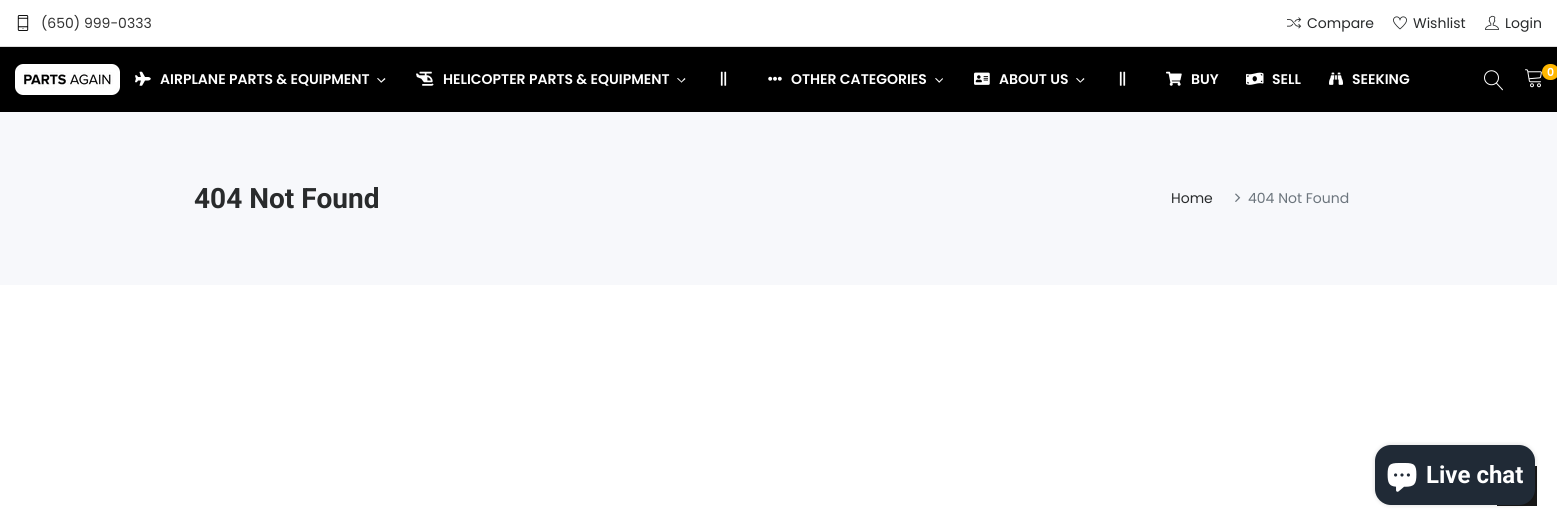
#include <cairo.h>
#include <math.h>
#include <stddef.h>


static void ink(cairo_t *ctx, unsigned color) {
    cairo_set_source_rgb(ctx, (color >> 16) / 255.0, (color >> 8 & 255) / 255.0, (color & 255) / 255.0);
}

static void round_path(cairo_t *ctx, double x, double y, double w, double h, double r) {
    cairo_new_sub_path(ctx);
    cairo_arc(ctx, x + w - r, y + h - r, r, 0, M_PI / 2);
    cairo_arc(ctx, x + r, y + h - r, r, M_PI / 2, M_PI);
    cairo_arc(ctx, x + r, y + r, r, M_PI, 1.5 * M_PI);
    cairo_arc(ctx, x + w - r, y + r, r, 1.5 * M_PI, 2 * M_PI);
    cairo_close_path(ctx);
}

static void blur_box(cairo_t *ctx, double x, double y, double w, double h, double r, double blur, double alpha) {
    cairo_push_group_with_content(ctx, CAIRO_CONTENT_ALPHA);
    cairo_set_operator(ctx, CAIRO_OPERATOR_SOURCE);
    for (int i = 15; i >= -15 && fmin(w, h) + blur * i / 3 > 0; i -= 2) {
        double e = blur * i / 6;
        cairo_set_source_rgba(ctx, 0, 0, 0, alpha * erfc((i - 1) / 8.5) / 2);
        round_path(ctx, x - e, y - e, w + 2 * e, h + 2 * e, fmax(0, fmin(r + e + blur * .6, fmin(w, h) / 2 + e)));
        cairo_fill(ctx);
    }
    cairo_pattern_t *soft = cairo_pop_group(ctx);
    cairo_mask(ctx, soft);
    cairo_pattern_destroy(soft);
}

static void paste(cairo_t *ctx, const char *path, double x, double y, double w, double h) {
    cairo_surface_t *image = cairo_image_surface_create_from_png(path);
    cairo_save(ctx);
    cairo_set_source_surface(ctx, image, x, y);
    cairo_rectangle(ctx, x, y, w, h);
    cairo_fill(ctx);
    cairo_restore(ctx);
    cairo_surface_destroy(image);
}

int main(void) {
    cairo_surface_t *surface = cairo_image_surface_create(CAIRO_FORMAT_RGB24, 1557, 526);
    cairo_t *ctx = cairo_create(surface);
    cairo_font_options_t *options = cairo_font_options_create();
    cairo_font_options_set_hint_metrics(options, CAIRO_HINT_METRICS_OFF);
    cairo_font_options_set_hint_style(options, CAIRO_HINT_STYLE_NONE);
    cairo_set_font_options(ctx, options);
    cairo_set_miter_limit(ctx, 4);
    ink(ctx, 0xFFFFFF);
    cairo_paint(ctx);
    ink(ctx, 0xDDDDDD);
    cairo_rectangle(ctx, 0, 46, 1557, 1);
    cairo_fill(ctx);
    paste(ctx, "media/1.png", 17, 15, 12, 16);
    cairo_select_font_face(ctx, "Poppins", CAIRO_FONT_SLANT_NORMAL, CAIRO_FONT_WEIGHT_NORMAL);
    cairo_set_font_size(ctx, 14);
    ink(ctx, 0x333333);
    cairo_move_to(ctx, 41, 28);
    cairo_show_text(ctx, "(650) 999-0333");
    paste(ctx, "media/2.png", 1287, 17, 15, 12);
    ink(ctx, 0x292B2C);
    cairo_move_to(ctx, 1307, 28);
    cairo_show_text(ctx, "Compare");
    paste(ctx, "media/3.png", 1393, 16, 14, 14);
    cairo_move_to(ctx, 1413, 28);
    cairo_show_text(ctx, "Wishlist");
    paste(ctx, "media/4.png", 1485, 15, 14, 15);
    cairo_move_to(ctx, 1505, 28);
    cairo_show_text(ctx, "Login");
    ink(ctx, 0x000000);
    cairo_rectangle(ctx, 0, 47, 1557, 65);
    cairo_fill(ctx);
    paste(ctx, "media/5.png", 15, 64, 105, 31);
    paste(ctx, "media/6.png", 1484, 70, 19, 21);
    paste(ctx, "media/7.png", 1525, 69, 17, 19);
    ink(ctx, 0xFFB700);
    round_path(ctx, 1542, 64, 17, 16, 8);
    cairo_fill(ctx);
    cairo_select_font_face(ctx, "Poppins SemiBold", CAIRO_FONT_SLANT_NORMAL, CAIRO_FONT_WEIGHT_NORMAL);
    cairo_set_font_size(ctx, 11);
    ink(ctx, 0xFFFFFF);
    cairo_move_to(ctx, 1547, 76);
    cairo_show_text(ctx, "0");
    paste(ctx, "media/8.png", 135, 71, 16, 15);
    cairo_set_font_size(ctx, 14);
    cairo_move_to(ctx, 160, 84);
    cairo_show_text(ctx, "AIRPLANE PARTS & EQUIPMENT");
    cairo_new_path(ctx);
    cairo_move_to(ctx, 384.5, 78);
    cairo_line_to(ctx, 385.5, 79);
    cairo_line_to(ctx, 381.5, 82.5);
    cairo_line_to(ctx, 380.5, 82);
    cairo_close_path(ctx);
    cairo_fill(ctx);
    cairo_new_path(ctx);
    cairo_move_to(ctx, 378, 78);
    cairo_line_to(ctx, 382, 82);
    cairo_line_to(ctx, 381, 82.5);
    cairo_line_to(ctx, 377, 78.5);
    cairo_close_path(ctx);
    cairo_fill(ctx);
    paste(ctx, "media/9.png", 416, 71, 18, 15);
    cairo_move_to(ctx, 443, 84);
    cairo_show_text(ctx, "HELICOPTER PARTS & EQUIPMENT");
    cairo_new_path(ctx);
    cairo_move_to(ctx, 684.5, 78);
    cairo_line_to(ctx, 685.5, 79);
    cairo_line_to(ctx, 681.5, 82.5);
    cairo_line_to(ctx, 681, 82);
    cairo_close_path(ctx);
    cairo_fill(ctx);
    cairo_new_path(ctx);
    cairo_move_to(ctx, 678, 78);
    cairo_line_to(ctx, 682, 82);
    cairo_line_to(ctx, 681.5, 82.5);
    cairo_line_to(ctx, 677, 78.5);
    cairo_close_path(ctx);
    cairo_fill(ctx);
    paste(ctx, "media/10.png", 720, 71, 7, 15);
    paste(ctx, "media/11.png", 768, 76, 14, 5);
    cairo_move_to(ctx, 791, 84);
    cairo_show_text(ctx, "OTHER CATEGORIES");
    cairo_new_path(ctx);
    cairo_move_to(ctx, 942.5, 78);
    cairo_line_to(ctx, 943, 79);
    cairo_line_to(ctx, 939.5, 82.5);
    cairo_line_to(ctx, 938.5, 82);
    cairo_close_path(ctx);
    cairo_fill(ctx);
    cairo_new_path(ctx);
    cairo_move_to(ctx, 936, 78);
    cairo_line_to(ctx, 940, 82);
    cairo_line_to(ctx, 939, 82.5);
    cairo_line_to(ctx, 935, 78.5);
    cairo_close_path(ctx);
    cairo_fill(ctx);
    paste(ctx, "media/12.png", 974, 72, 16, 13);
    cairo_move_to(ctx, 999, 84);
    cairo_show_text(ctx, "ABOUT US");
    cairo_new_path(ctx);
    cairo_move_to(ctx, 1083.5, 78);
    cairo_line_to(ctx, 1084.5, 79);
    cairo_line_to(ctx, 1080.5, 82.5);
    cairo_line_to(ctx, 1080, 82);
    cairo_close_path(ctx);
    cairo_fill(ctx);
    cairo_new_path(ctx);
    cairo_move_to(ctx, 1077, 78);
    cairo_line_to(ctx, 1081, 82);
    cairo_line_to(ctx, 1080, 82.5);
    cairo_line_to(ctx, 1076, 78.5);
    cairo_close_path(ctx);
    cairo_fill(ctx);
    paste(ctx, "media/10.png", 1119, 71, 7, 15);
    paste(ctx, "media/13.png", 1166, 71, 16, 15);
    cairo_move_to(ctx, 1191, 84);
    cairo_show_text(ctx, "BUY");
    paste(ctx, "media/14.png", 1246, 72, 18, 13);
    cairo_move_to(ctx, 1272, 84);
    cairo_show_text(ctx, "SELL");
    paste(ctx, "media/15.png", 1329, 72, 14, 13);
    cairo_move_to(ctx, 1352, 84);
    cairo_show_text(ctx, "SEEKING");
    ink(ctx, 0xF7F8FB);
    cairo_rectangle(ctx, 0, 112, 1557, 173);
    cairo_fill(ctx);
    cairo_select_font_face(ctx, "Roboto", CAIRO_FONT_SLANT_NORMAL, CAIRO_FONT_WEIGHT_BOLD);
    cairo_set_font_size(ctx, 28);
    ink(ctx, 0x292B2C);
    cairo_move_to(ctx, 194, 208);
    cairo_show_text(ctx, "404 Not Found");
    cairo_select_font_face(ctx, "Poppins", CAIRO_FONT_SLANT_NORMAL, CAIRO_FONT_WEIGHT_NORMAL);
    cairo_set_font_size(ctx, 14);
    cairo_move_to(ctx, 1171, 203);
    cairo_show_text(ctx, "Home");
    paste(ctx, "media/16.png", 1235, 193, 6, 9);
    ink(ctx, 0x6C757D);
    cairo_move_to(ctx, 1248, 203);
    cairo_show_text(ctx, "404 Not Found");
    ink(ctx, 0x171717);
    cairo_rectangle(ctx, 1497, 466, 40, 40);
    cairo_fill(ctx);
    ink(ctx, 0x000000);
    blur_box(ctx, 1375, 445, 160, 60, 16, 2.5, 0.15);
    ink(ctx, 0x202A36);
    round_path(ctx, 1375, 445, 160, 60, 16);
    cairo_fill(ctx);
    paste(ctx, "media/17.png", 1387, 463, 30, 29);
    cairo_select_font_face(ctx, "Roboto", CAIRO_FONT_SLANT_NORMAL, CAIRO_FONT_WEIGHT_BOLD);
    cairo_set_font_size(ctx, 24);
    ink(ctx, 0xFFFFFF);
    cairo_move_to(ctx, 1426, 483);
    cairo_show_text(ctx, "Live chat");
    cairo_surface_write_to_png(surface, "image.png");
    cairo_font_options_destroy(options);
    cairo_destroy(ctx);
    cairo_surface_destroy(surface);
    return 0;
}
